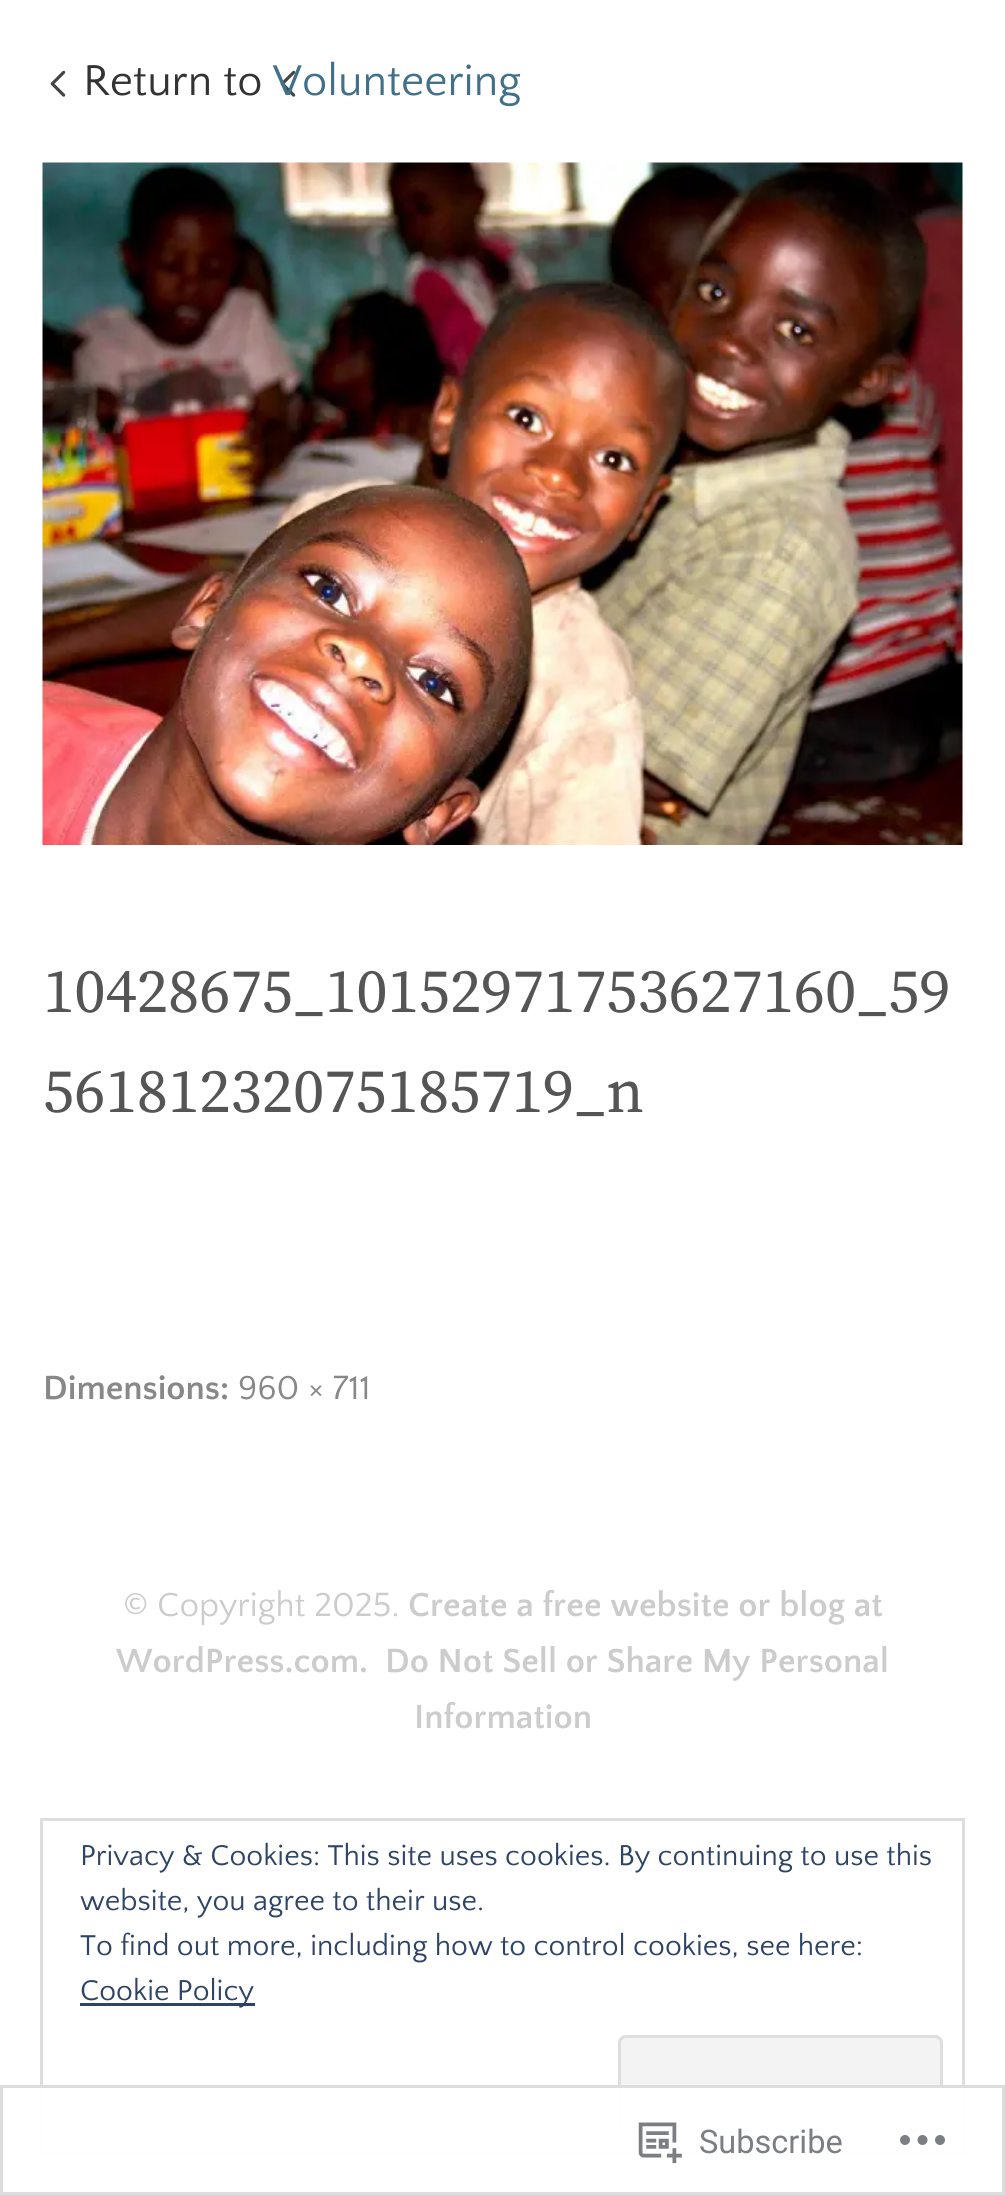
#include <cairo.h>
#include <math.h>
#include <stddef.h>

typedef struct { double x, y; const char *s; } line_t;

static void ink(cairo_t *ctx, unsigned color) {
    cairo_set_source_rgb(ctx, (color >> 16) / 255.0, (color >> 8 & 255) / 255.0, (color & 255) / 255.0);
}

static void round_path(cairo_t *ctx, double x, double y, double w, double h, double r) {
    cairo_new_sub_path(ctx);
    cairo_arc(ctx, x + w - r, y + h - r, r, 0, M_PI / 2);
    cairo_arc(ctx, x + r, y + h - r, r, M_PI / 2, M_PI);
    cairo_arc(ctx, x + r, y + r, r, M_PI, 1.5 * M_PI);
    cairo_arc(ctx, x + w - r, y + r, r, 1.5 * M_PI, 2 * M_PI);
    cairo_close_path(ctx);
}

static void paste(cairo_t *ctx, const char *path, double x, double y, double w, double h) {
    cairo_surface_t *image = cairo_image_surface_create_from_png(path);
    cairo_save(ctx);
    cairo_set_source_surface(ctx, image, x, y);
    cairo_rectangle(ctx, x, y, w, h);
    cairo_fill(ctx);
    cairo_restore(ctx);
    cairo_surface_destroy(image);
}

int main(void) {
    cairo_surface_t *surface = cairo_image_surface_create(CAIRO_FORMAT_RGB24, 1005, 2195);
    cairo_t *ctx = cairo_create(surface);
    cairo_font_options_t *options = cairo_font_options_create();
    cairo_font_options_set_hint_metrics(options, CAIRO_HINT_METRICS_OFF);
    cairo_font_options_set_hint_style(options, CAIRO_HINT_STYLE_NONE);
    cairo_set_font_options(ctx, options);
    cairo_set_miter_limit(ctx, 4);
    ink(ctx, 0xFFFFFF);
    cairo_paint(ctx);
    paste(ctx, "media/1.png", 50, 70, 246, 27);
    cairo_select_font_face(ctx, "Quattrocento Sans", CAIRO_FONT_SLANT_NORMAL, CAIRO_FONT_WEIGHT_NORMAL);
    cairo_set_font_size(ctx, 45);
    ink(ctx, 0x333333);
    cairo_move_to(ctx, 83, 95);
    cairo_show_text(ctx, "Return to");
    ink(ctx, 0x41718A);
    cairo_move_to(ctx, 273, 95);
    cairo_show_text(ctx, "Volunteering");
    paste(ctx, "media/2.png", 42, 162, 921, 683);
    cairo_select_font_face(ctx, "Source Serif Pro", CAIRO_FONT_SLANT_NORMAL, CAIRO_FONT_WEIGHT_NORMAL);
    cairo_set_font_size(ctx, 62.5);
    ink(ctx, 0x555555);
    cairo_move_to(ctx, 43, 1012);
    cairo_show_text(ctx, "10428675_10152971753627160_59");
    cairo_move_to(ctx, 43, 1112);
    cairo_show_text(ctx, "56181232075185719_n");
    cairo_select_font_face(ctx, "Quattrocento Sans", CAIRO_FONT_SLANT_NORMAL, CAIRO_FONT_WEIGHT_BOLD);
    cairo_set_font_size(ctx, 35);
    ink(ctx, 0x888888);
    cairo_move_to(ctx, 43, 1399);
    cairo_show_text(ctx, "Dimensions:");
    cairo_select_font_face(ctx, "Quattrocento Sans", CAIRO_FONT_SLANT_NORMAL, CAIRO_FONT_WEIGHT_NORMAL);
    cairo_move_to(ctx, 238, 1399);
    cairo_show_text(ctx, "960 × 711");
    ink(ctx, 0xCCCCCC);
    cairo_move_to(ctx, 123, 1616);
    cairo_show_text(ctx, "© Copyright 2025.");
    cairo_select_font_face(ctx, "Quattrocento Sans", CAIRO_FONT_SLANT_NORMAL, CAIRO_FONT_WEIGHT_BOLD);
    {
        static const line_t items[] = {
            {408, 1616, "Create a free website or blog at"},
            {116, 1672, "WordPress.com."},
            {385, 1672, "Do Not Sell or Share My Personal"},
            {414, 1728, "Information"},
        };
        for (size_t i = 0; i < sizeof items / sizeof *items; i++) {
            cairo_move_to(ctx, items[i].x, items[i].y);
            cairo_show_text(ctx, items[i].s);
        }
    }
    cairo_rectangle(ctx, 41.5, 1819.5, 922, 334);
    ink(ctx, 0xDEDEDE);
    cairo_set_line_width(ctx, 3);
    cairo_stroke(ctx);
    cairo_select_font_face(ctx, "Quattrocento Sans", CAIRO_FONT_SLANT_NORMAL, CAIRO_FONT_WEIGHT_NORMAL);
    cairo_set_font_size(ctx, 30);
    ink(ctx, 0x2E4467);
    {
        static const line_t items[] = {
            {80, 1865, "Privacy & Cookies: This site uses cookies. By continuing to use this"},
            {80, 1910, "website, you agree to their use."},
            {80, 1955, "To find out more, including how to control cookies, see here:"},
        };
        for (size_t i = 0; i < sizeof items / sizeof *items; i++) {
            cairo_move_to(ctx, items[i].x, items[i].y);
            cairo_show_text(ctx, items[i].s);
        }
    }
    cairo_rectangle(ctx, 80, 2003, 175, 3);
    cairo_fill(ctx);
    cairo_move_to(ctx, 80, 2000);
    cairo_show_text(ctx, "Cookie Policy");
    ink(ctx, 0xF3F3F3);
    round_path(ctx, 619.5, 2036.5, 322, 95, 6.5);
    cairo_fill_preserve(ctx);
    ink(ctx, 0xDEDEDE);
    cairo_stroke(ctx);
    cairo_set_source_rgba(ctx, 1, 1, 1, 0.98);
    cairo_rectangle(ctx, 40, 2085, 925, 70);
    cairo_fill(ctx);
    cairo_rectangle(ctx, 1.5, 2086.5, 1002, 107);
    cairo_set_source_rgba(ctx, 0.863, 0.863, 0.871, 0.98);
    cairo_stroke(ctx);
    paste(ctx, "media/3.png", 638, 2122, 44, 42);
    cairo_select_font_face(ctx, "Roboto", CAIRO_FONT_SLANT_NORMAL, CAIRO_FONT_WEIGHT_NORMAL);
    cairo_set_font_size(ctx, 32.5);
    ink(ctx, 0x7B7F84);
    cairo_move_to(ctx, 699, 2153);
    cairo_show_text(ctx, "Subscribe");
    paste(ctx, "media/4.png", 900, 2135, 45, 10);
    cairo_surface_write_to_png(surface, "image.png");
    cairo_font_options_destroy(options);
    cairo_destroy(ctx);
    cairo_surface_destroy(surface);
    return 0;
}
